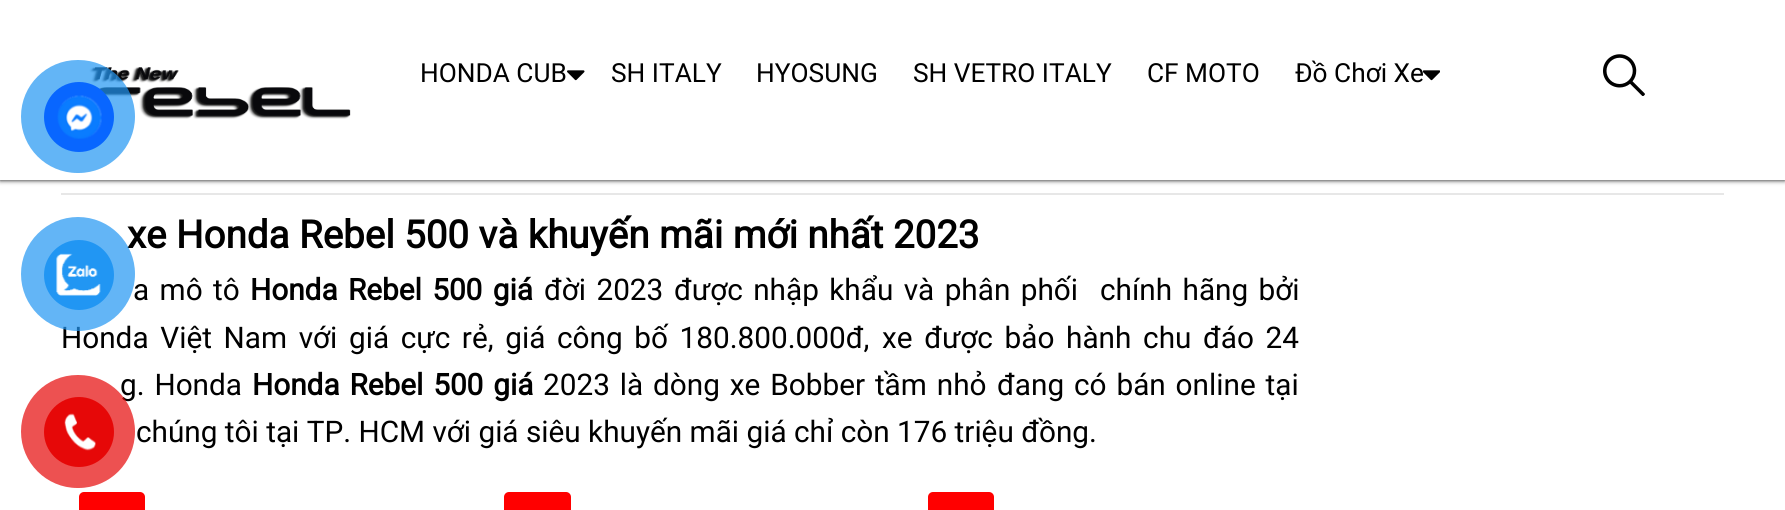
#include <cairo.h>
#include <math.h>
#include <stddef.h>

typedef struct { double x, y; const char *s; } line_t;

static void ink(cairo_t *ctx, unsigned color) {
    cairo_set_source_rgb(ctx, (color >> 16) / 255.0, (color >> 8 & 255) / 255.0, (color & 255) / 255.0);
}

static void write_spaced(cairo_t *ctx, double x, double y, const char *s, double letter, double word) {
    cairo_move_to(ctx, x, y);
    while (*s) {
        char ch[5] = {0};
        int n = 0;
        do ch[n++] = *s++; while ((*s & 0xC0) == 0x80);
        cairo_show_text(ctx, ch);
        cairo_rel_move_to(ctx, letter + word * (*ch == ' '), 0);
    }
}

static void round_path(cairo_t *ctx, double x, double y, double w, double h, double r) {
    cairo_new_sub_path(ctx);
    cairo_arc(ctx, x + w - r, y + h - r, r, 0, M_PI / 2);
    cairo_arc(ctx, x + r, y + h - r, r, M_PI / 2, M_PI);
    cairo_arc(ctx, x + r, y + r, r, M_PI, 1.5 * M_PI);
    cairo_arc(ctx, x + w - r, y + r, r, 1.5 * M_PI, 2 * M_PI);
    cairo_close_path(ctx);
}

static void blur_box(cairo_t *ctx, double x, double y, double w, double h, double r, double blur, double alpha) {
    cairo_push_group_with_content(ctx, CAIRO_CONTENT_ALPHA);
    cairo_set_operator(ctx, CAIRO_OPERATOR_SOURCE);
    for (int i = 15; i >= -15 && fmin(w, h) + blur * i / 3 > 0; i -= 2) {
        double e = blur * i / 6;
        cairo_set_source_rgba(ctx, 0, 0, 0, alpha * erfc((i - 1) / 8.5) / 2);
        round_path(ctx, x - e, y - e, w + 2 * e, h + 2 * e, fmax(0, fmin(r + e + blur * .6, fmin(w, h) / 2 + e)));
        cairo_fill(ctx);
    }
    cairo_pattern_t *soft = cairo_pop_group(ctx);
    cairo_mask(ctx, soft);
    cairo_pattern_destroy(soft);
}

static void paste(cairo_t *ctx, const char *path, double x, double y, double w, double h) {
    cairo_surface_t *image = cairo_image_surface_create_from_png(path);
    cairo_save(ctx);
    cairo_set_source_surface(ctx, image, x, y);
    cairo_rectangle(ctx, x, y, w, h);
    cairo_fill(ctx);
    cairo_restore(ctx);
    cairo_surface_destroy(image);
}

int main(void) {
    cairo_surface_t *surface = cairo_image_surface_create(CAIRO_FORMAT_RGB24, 1785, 510);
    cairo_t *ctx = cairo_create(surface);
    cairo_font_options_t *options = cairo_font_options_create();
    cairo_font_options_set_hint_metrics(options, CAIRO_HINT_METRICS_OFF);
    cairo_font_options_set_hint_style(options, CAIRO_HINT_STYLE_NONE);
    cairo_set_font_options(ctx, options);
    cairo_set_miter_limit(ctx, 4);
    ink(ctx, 0xFFFFFF);
    cairo_paint(ctx);
    ink(ctx, 0x000000);
    blur_box(ctx, 0, 0, 1785, 180, 0, 2.5, 1);
    ink(ctx, 0xFFFFFF);
    cairo_rectangle(ctx, 0, 0, 1785, 180);
    cairo_fill(ctx);
    paste(ctx, "media/4.png", 89, 67, 262, 52);
    cairo_set_source_rgba(ctx, 0.129, 0.588, 0.953, 0.7);
    round_path(ctx, 21, 60, 114, 113, 56.5);
    cairo_fill(ctx);
    ink(ctx, 0x0866FF);
    cairo_arc(ctx, 79, 117, 35, 0, 2 * M_PI);
    cairo_fill(ctx);
    paste(ctx, "media/1.png", 57, 95, 45, 44);
    cairo_select_font_face(ctx, "Roboto", CAIRO_FONT_SLANT_NORMAL, CAIRO_FONT_WEIGHT_BOLD);
    cairo_set_font_size(ctx, 38.5);
    ink(ctx, 0x000000);
    cairo_move_to(ctx, 127, 248);
    cairo_show_text(ctx, "xe Honda Rebel 500 và khuyến mãi mới nhất 2023");
    cairo_select_font_face(ctx, "Roboto", CAIRO_FONT_SLANT_NORMAL, CAIRO_FONT_WEIGHT_NORMAL);
    cairo_set_font_size(ctx, 29.75);
    write_spaced(ctx, 133, 300, "a mô tô", 0, 3);
    write_spaced(ctx, 61, 348, "Honda Việt Nam với giá cực rẻ, giá công bố 180.800.000đ,", 0, 4.25);
    cairo_set_source_rgba(ctx, 0.129, 0.588, 0.953, 0.7);
    cairo_new_path(ctx);
    cairo_arc(ctx, 78, 274, 57, 0, 2 * M_PI);
    cairo_fill(ctx);
    ink(ctx, 0x2196F3);
    cairo_arc(ctx, 79, 275, 35, 0, 2 * M_PI);
    cairo_fill(ctx);
    paste(ctx, "media/2.png", 56, 253, 45, 43);
    ink(ctx, 0x000000);
    write_spaced(ctx, 120, 395, "g. Honda", 0, 2.5);
    cairo_set_source_rgba(ctx, 0.902, 0.031, 0.031, 0.7);
    round_path(ctx, 21, 375, 114, 113, 56.5);
    cairo_fill(ctx);
    ink(ctx, 0xE60808);
    cairo_arc(ctx, 79, 432, 35, 0, 2 * M_PI);
    cairo_fill(ctx);
    paste(ctx, "media/3.png", 64, 413, 32, 38);
    paste(ctx, "media/5.png", 567, 70, 18, 11);
    cairo_set_font_size(ctx, 26.25);
    ink(ctx, 0x000000);
    {
        static const line_t items[] = {
            {420, 82, "HONDA CUB"},
            {611, 82, "SH ITALY"},
            {756, 82, "HYOSUNG"},
            {913, 82, "SH VETRO ITALY"},
            {1147, 82, "CF MOTO"},
        };
        for (size_t i = 0; i < sizeof items / sizeof *items; i++) {
            cairo_move_to(ctx, items[i].x, items[i].y);
            cairo_show_text(ctx, items[i].s);
        }
    }
    paste(ctx, "media/6.png", 1423, 70, 17, 11);
    cairo_move_to(ctx, 1295, 82);
    cairo_show_text(ctx, "Đồ Chơi Xe");
    paste(ctx, "media/7.png", 1603, 54, 42, 42);
    ink(ctx, 0xE7E7E7);
    cairo_rectangle(ctx, 61, 193, 1663, 2);
    cairo_fill(ctx);
    cairo_select_font_face(ctx, "Roboto", CAIRO_FONT_SLANT_NORMAL, CAIRO_FONT_WEIGHT_BOLD);
    cairo_set_font_size(ctx, 29.75);
    ink(ctx, 0x000000);
    write_spaced(ctx, 250, 300, "Honda Rebel 500 giá", 0, 3);
    cairo_select_font_face(ctx, "Roboto", CAIRO_FONT_SLANT_NORMAL, CAIRO_FONT_WEIGHT_NORMAL);
    {
        static const line_t items[] = {
            {544, 300, "đời 2023"},
            {674, 300, "được nhập khẩu và phân phối"},
            {1100, 300, "chính hãng bởi"},
        };
        for (size_t i = 0; i < sizeof items / sizeof *items; i++) {
            write_spaced(ctx, items[i].x, items[i].y, items[i].s, 0, 3);
        }
    }
    write_spaced(ctx, 882, 348, "xe được bảo hành chu đáo 24", 0, 4.25);
    cairo_select_font_face(ctx, "Roboto", CAIRO_FONT_SLANT_NORMAL, CAIRO_FONT_WEIGHT_BOLD);
    write_spaced(ctx, 252, 395, "Honda Rebel 500 giá", 0, 2.5);
    cairo_select_font_face(ctx, "Roboto", CAIRO_FONT_SLANT_NORMAL, CAIRO_FONT_WEIGHT_NORMAL);
    write_spaced(ctx, 543, 395, "2023 là dòng xe Bobber tầm nhỏ", 0, 2.5);
    cairo_move_to(ctx, 997, 395);
    cairo_show_text(ctx, "đang");
    write_spaced(ctx, 1074, 395, "có bán online tại", 0, 2.5);
    cairo_move_to(ctx, 136, 442);
    cairo_show_text(ctx, "chúng tôi tại TP. HCM với giá siêu khuyến mãi giá chỉ còn 176 triệu đồng.");
    ink(ctx, 0xFF0000);
    round_path(ctx, 79, 492, 66, 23, 5);
    cairo_fill(ctx);
    round_path(ctx, 504, 492, 67, 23, 5);
    cairo_fill(ctx);
    round_path(ctx, 928, 492, 66, 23, 5);
    cairo_fill(ctx);
    cairo_surface_write_to_png(surface, "image.png");
    cairo_font_options_destroy(options);
    cairo_destroy(ctx);
    cairo_surface_destroy(surface);
    return 0;
}
